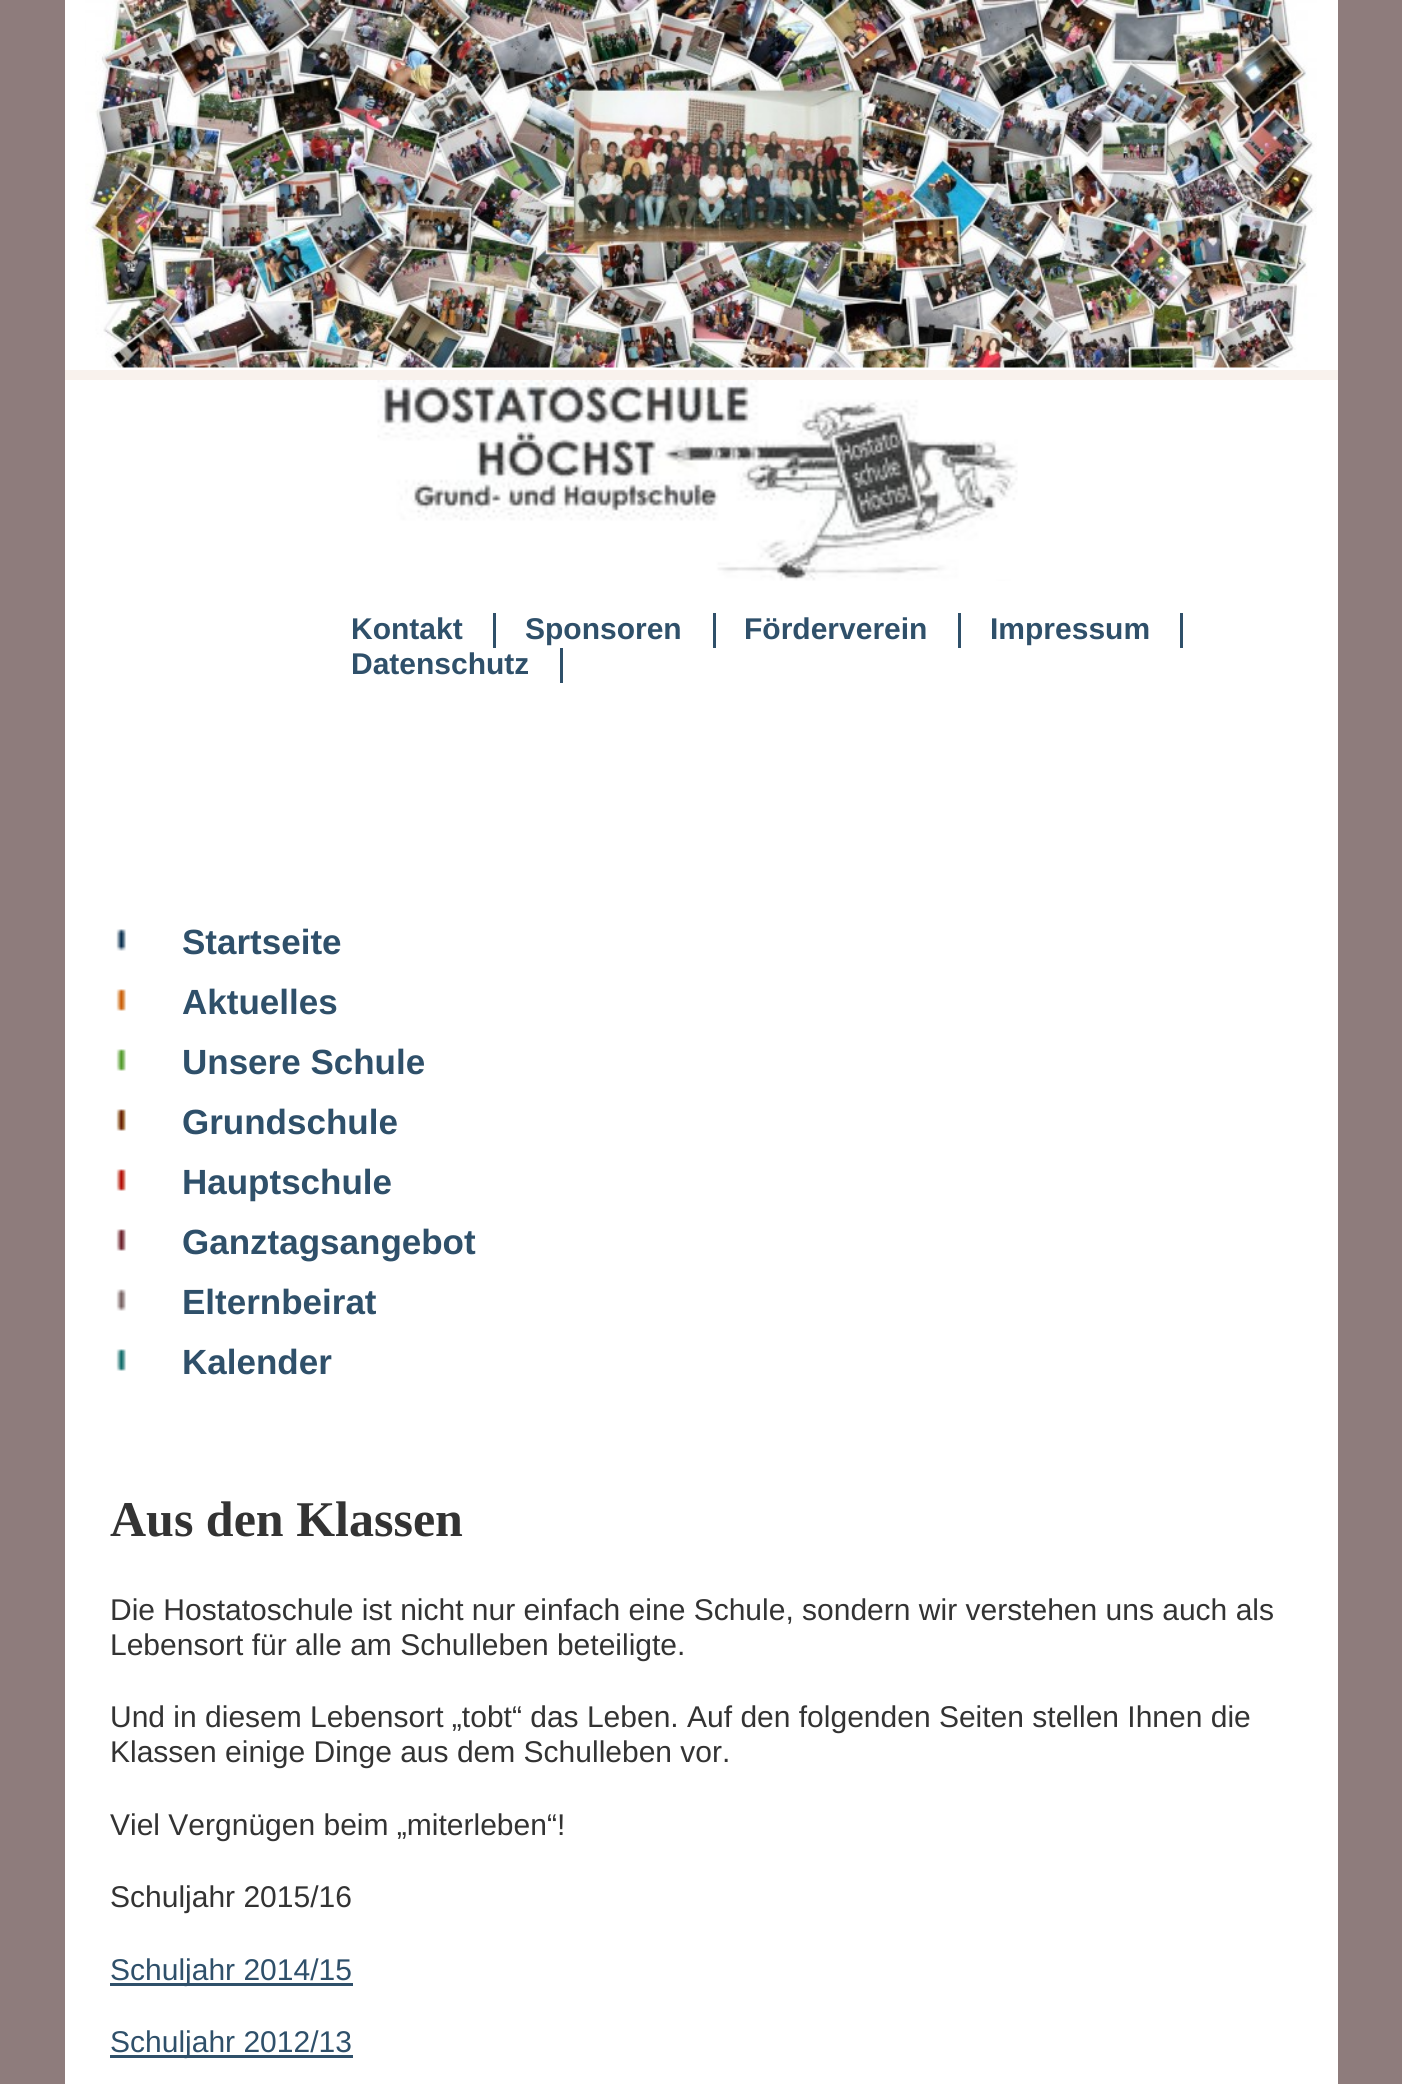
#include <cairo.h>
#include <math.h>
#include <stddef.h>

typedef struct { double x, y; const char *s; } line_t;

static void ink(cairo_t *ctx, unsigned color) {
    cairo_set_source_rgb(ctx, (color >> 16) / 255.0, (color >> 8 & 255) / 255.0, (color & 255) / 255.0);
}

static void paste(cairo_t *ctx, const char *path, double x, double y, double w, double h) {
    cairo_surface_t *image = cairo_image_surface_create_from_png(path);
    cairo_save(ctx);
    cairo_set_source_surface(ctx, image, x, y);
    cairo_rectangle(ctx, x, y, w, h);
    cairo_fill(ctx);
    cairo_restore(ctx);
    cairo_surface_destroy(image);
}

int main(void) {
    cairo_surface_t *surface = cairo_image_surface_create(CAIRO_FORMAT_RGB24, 1402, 2084);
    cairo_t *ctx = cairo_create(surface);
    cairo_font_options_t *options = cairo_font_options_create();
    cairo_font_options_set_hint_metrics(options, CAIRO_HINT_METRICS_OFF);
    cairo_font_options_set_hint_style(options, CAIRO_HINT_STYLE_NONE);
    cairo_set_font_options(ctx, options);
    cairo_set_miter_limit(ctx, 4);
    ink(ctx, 0x8E7C7C);
    cairo_paint(ctx);
    ink(ctx, 0xFFFFFF);
    cairo_rectangle(ctx, 65, 0, 1273, 2084);
    cairo_fill(ctx);
    ink(ctx, 0xF9F2ED);
    cairo_rectangle(ctx, 65, 370, 1273, 10);
    cairo_fill(ctx);
    paste(ctx, "media/1.png", 85, 0, 1232, 368);
    paste(ctx, "media/2.png", 377, 380, 641, 201);
    ink(ctx, 0x2F506A);
    cairo_rectangle(ctx, 493, 613, 3, 35);
    cairo_fill(ctx);
    cairo_select_font_face(ctx, "Liberation Sans", CAIRO_FONT_SLANT_NORMAL, CAIRO_FONT_WEIGHT_BOLD);
    cairo_set_font_size(ctx, 30);
    cairo_move_to(ctx, 351, 639);
    cairo_show_text(ctx, "Kontakt");
    cairo_rectangle(ctx, 713, 613, 3, 35);
    cairo_fill(ctx);
    cairo_move_to(ctx, 525, 639);
    cairo_show_text(ctx, "Sponsoren");
    cairo_rectangle(ctx, 958, 613, 3, 35);
    cairo_fill(ctx);
    cairo_move_to(ctx, 744, 639);
    cairo_show_text(ctx, "Förderverein");
    cairo_rectangle(ctx, 1180, 613, 3, 35);
    cairo_fill(ctx);
    cairo_move_to(ctx, 990, 639);
    cairo_show_text(ctx, "Impressum");
    cairo_rectangle(ctx, 560, 648, 3, 35);
    cairo_fill(ctx);
    cairo_move_to(ctx, 351, 674);
    cairo_show_text(ctx, "Datenschutz");
    paste(ctx, "media/3.png", 116, 929, 10, 442);
    cairo_set_font_size(ctx, 35);
    {
        static const line_t items[] = {
            {182, 954, "Startseite"},
            {182, 1014, "Aktuelles"},
            {182, 1074, "Unsere Schule"},
            {182, 1134, "Grundschule"},
            {182, 1194, "Hauptschule"},
            {182, 1254, "Ganztagsangebot"},
            {182, 1314, "Elternbeirat"},
            {182, 1374, "Kalender"},
        };
        for (size_t i = 0; i < sizeof items / sizeof *items; i++) {
            cairo_move_to(ctx, items[i].x, items[i].y);
            cairo_show_text(ctx, items[i].s);
        }
    }
    cairo_select_font_face(ctx, "Liberation Serif", CAIRO_FONT_SLANT_NORMAL, CAIRO_FONT_WEIGHT_BOLD);
    cairo_set_font_size(ctx, 50);
    ink(ctx, 0x333333);
    cairo_move_to(ctx, 110, 1536);
    cairo_show_text(ctx, "Aus den Klassen");
    cairo_select_font_face(ctx, "Liberation Sans", CAIRO_FONT_SLANT_NORMAL, CAIRO_FONT_WEIGHT_NORMAL);
    cairo_set_font_size(ctx, 30);
    {
        static const line_t items[] = {
            {110, 1620, "Die Hostatoschule ist nicht nur einfach eine Schule, sondern wir verstehen uns auch als"},
            {110, 1655, "Lebensort für alle am Schulleben beteiligte."},
            {110, 1727, "Und in diesem Lebensort „tobt“ das Leben. Auf den folgenden Seiten stellen Ihnen die"},
            {110, 1762, "Klassen einige Dinge aus dem Schulleben vor."},
            {110, 1835, "Viel Vergnügen beim „miterleben“!"},
            {110, 1907, "Schuljahr 2015/16"},
        };
        for (size_t i = 0; i < sizeof items / sizeof *items; i++) {
            cairo_move_to(ctx, items[i].x, items[i].y);
            cairo_show_text(ctx, items[i].s);
        }
    }
    ink(ctx, 0x2F506A);
    cairo_rectangle(ctx, 110, 1983, 243, 3);
    cairo_fill(ctx);
    cairo_move_to(ctx, 110, 1980);
    cairo_show_text(ctx, "Schuljahr 2014/15");
    cairo_rectangle(ctx, 110, 2055, 243, 3);
    cairo_fill(ctx);
    cairo_move_to(ctx, 110, 2052);
    cairo_show_text(ctx, "Schuljahr 2012/13");
    cairo_surface_write_to_png(surface, "image.png");
    cairo_font_options_destroy(options);
    cairo_destroy(ctx);
    cairo_surface_destroy(surface);
    return 0;
}
